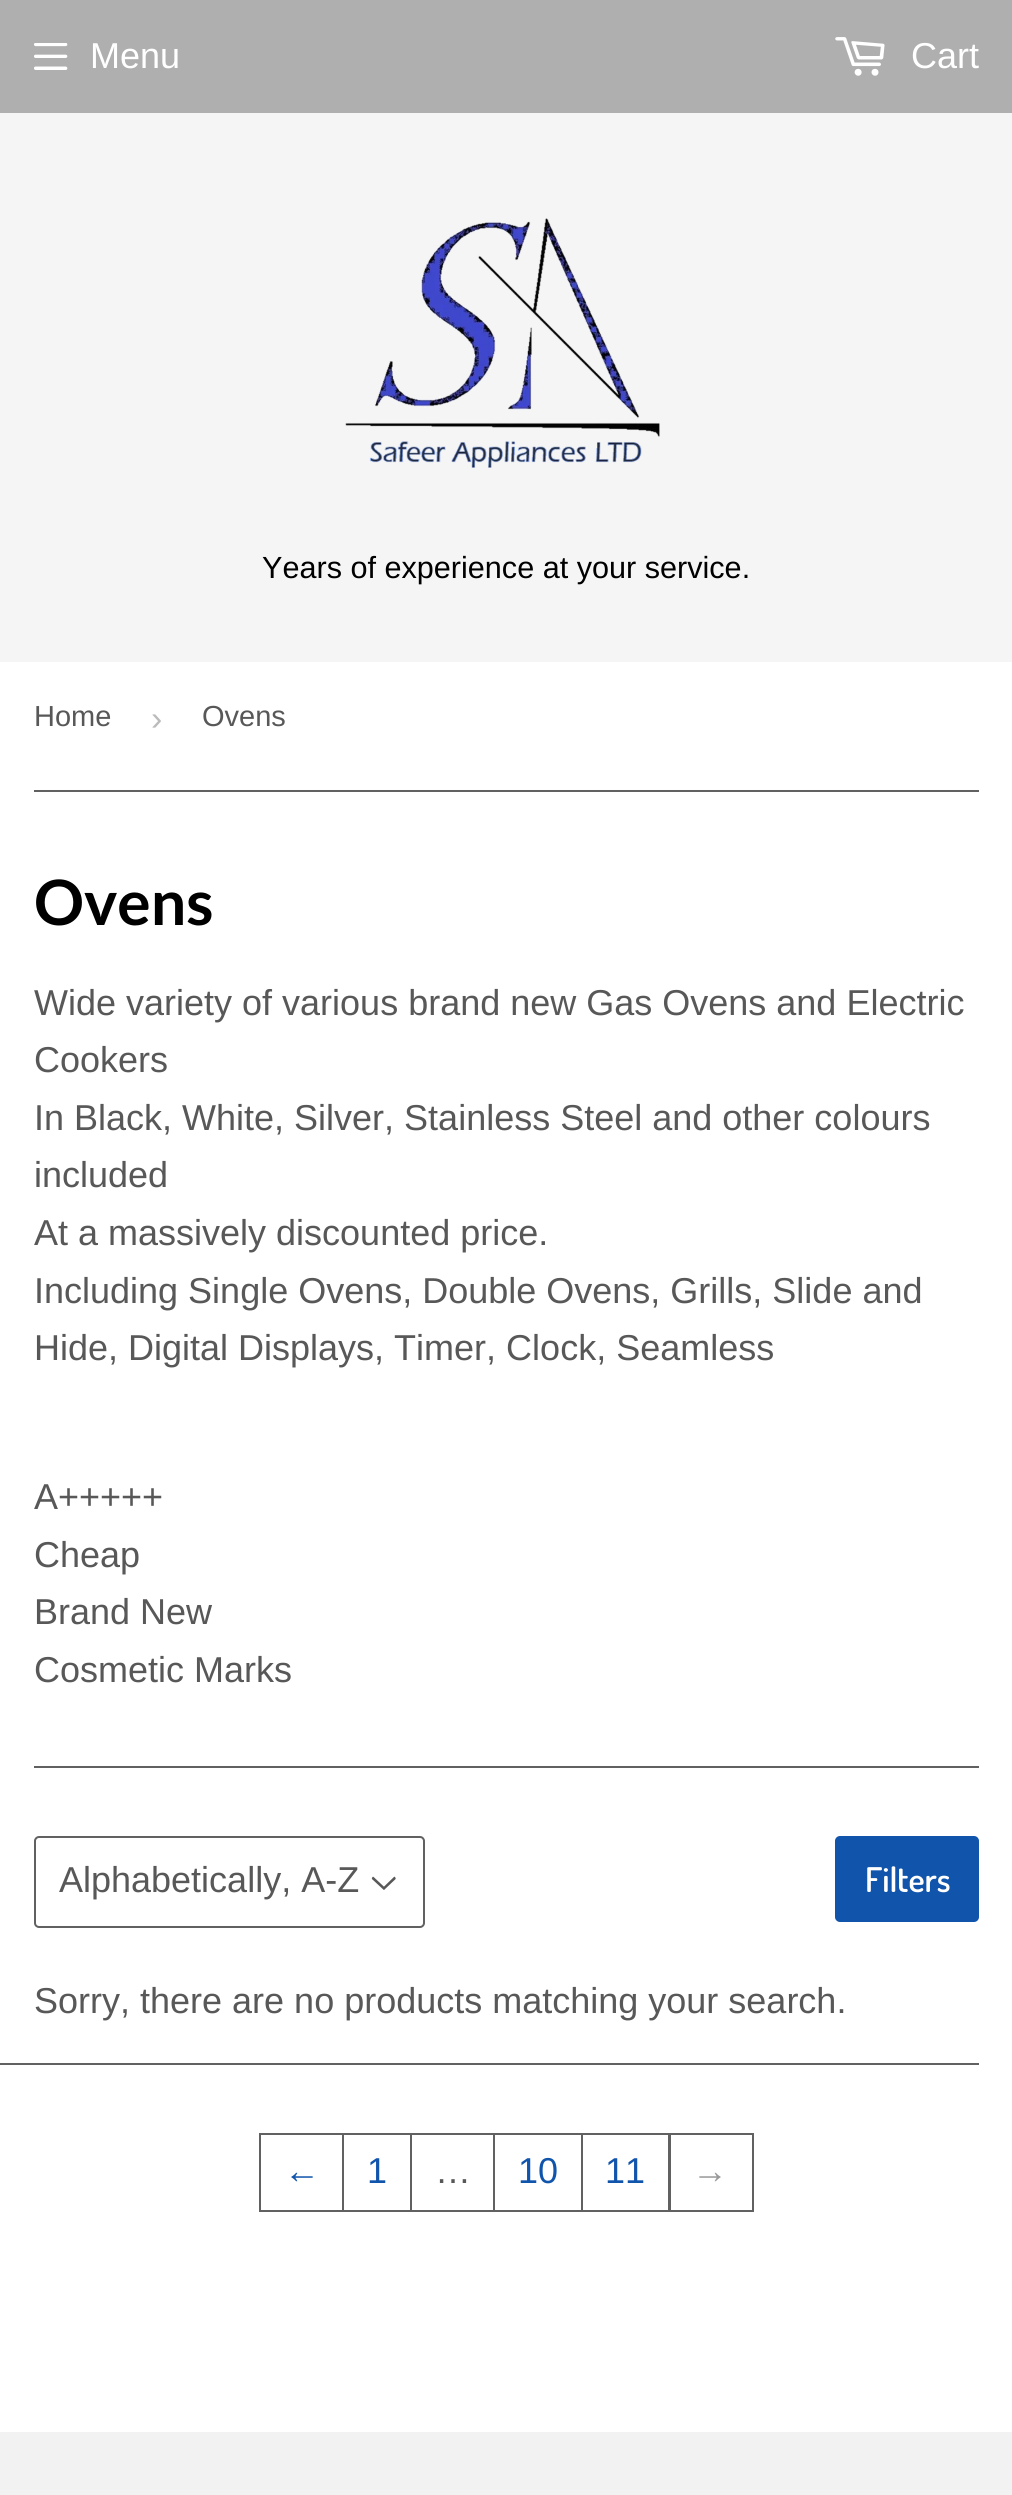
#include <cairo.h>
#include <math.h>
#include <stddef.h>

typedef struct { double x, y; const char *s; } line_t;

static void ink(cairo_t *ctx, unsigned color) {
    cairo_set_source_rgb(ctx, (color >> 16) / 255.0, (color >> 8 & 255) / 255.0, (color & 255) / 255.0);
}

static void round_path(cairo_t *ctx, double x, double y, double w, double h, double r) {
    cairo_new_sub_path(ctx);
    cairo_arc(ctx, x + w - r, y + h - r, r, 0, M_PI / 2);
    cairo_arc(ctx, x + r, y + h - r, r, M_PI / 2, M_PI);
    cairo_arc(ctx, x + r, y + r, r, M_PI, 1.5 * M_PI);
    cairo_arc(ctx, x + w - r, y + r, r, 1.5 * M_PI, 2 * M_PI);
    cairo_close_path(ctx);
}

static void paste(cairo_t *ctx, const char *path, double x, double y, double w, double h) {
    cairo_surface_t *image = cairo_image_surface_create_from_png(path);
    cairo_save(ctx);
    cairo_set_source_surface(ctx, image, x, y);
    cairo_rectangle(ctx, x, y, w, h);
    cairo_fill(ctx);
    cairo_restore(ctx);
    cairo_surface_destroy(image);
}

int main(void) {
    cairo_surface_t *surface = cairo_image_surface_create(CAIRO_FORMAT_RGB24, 1012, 2495);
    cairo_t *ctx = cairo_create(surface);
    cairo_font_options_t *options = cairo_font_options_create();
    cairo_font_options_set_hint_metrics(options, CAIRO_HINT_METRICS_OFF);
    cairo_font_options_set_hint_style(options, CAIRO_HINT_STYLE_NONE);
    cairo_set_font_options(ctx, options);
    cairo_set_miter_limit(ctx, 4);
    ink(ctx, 0xFFFFFF);
    cairo_paint(ctx);
    ink(ctx, 0xB0AFAF);
    cairo_rectangle(ctx, 0, 0, 1012, 113);
    cairo_fill(ctx);
    paste(ctx, "media/1.png", 34, 43, 34, 27);
    cairo_select_font_face(ctx, "Liberation Sans", CAIRO_FONT_SLANT_NORMAL, CAIRO_FONT_WEIGHT_NORMAL);
    cairo_set_font_size(ctx, 36);
    ink(ctx, 0xFFFFFF);
    cairo_move_to(ctx, 90, 68);
    cairo_show_text(ctx, "Menu");
    paste(ctx, "media/2.png", 835, 37, 50, 39);
    cairo_move_to(ctx, 911, 68);
    cairo_show_text(ctx, "Cart");
    ink(ctx, 0xF5F5F5);
    cairo_rectangle(ctx, 0, 113, 1012, 549);
    cairo_fill(ctx);
    paste(ctx, "media/3.png", 345, 218, 315, 250);
    cairo_set_font_size(ctx, 30.6);
    ink(ctx, 0x000000);
    cairo_move_to(ctx, 262, 578);
    cairo_show_text(ctx, "Years of experience at your service.");
    ink(ctx, 0x616161);
    cairo_rectangle(ctx, 34, 790, 945, 2);
    cairo_fill(ctx);
    cairo_set_font_size(ctx, 29);
    ink(ctx, 0x585858);
    cairo_move_to(ctx, 34, 726);
    cairo_show_text(ctx, "Home");
    cairo_set_font_size(ctx, 34);
    ink(ctx, 0xBBBBBB);
    cairo_move_to(ctx, 151, 730);
    cairo_show_text(ctx, "›");
    cairo_set_font_size(ctx, 29);
    ink(ctx, 0x585858);
    cairo_move_to(ctx, 202, 726);
    cairo_show_text(ctx, "Ovens");
    cairo_select_font_face(ctx, "Lato", CAIRO_FONT_SLANT_NORMAL, CAIRO_FONT_WEIGHT_BOLD);
    cairo_set_font_size(ctx, 62.5);
    ink(ctx, 0x000000);
    cairo_move_to(ctx, 34, 925);
    cairo_show_text(ctx, "Ovens");
    cairo_select_font_face(ctx, "Liberation Sans", CAIRO_FONT_SLANT_NORMAL, CAIRO_FONT_WEIGHT_NORMAL);
    cairo_set_font_size(ctx, 36);
    ink(ctx, 0x585858);
    {
        static const line_t items[] = {
            {34, 1015, "Wide variety of various brand new Gas Ovens and Electric"},
            {34, 1072, "Cookers"},
            {34, 1130, "In Black, White, Silver, Stainless Steel and other colours"},
            {34, 1187, "included"},
            {34, 1245, "At a massively discounted price."},
            {34, 1303, "Including Single Ovens, Double Ovens, Grills, Slide and"},
            {34, 1360, "Hide, Digital Displays, Timer, Clock, Seamless"},
            {34, 1509, "A+++++"},
            {34, 1567, "Cheap"},
            {34, 1624, "Brand New"},
            {34, 1682, "Cosmetic Marks"},
        };
        for (size_t i = 0; i < sizeof items / sizeof *items; i++) {
            cairo_move_to(ctx, items[i].x, items[i].y);
            cairo_show_text(ctx, items[i].s);
        }
    }
    ink(ctx, 0x616161);
    cairo_rectangle(ctx, 34, 1766, 945, 2);
    cairo_fill(ctx);
    paste(ctx, "media/4.png", 371, 1876, 25, 14);
    round_path(ctx, 35, 1837, 389, 90, 4);
    cairo_stroke(ctx);
    ink(ctx, 0x585858);
    cairo_move_to(ctx, 59, 1892);
    cairo_show_text(ctx, "Alphabetically, A-Z");
    ink(ctx, 0x1154AB);
    round_path(ctx, 835, 1836, 144, 86, 5);
    cairo_fill(ctx);
    cairo_select_font_face(ctx, "Dosis SemiBold", CAIRO_FONT_SLANT_NORMAL, CAIRO_FONT_WEIGHT_NORMAL);
    cairo_set_font_size(ctx, 34);
    ink(ctx, 0xFFFFFF);
    cairo_move_to(ctx, 865, 1892);
    cairo_show_text(ctx, "Filters");
    cairo_select_font_face(ctx, "Liberation Sans", CAIRO_FONT_SLANT_NORMAL, CAIRO_FONT_WEIGHT_NORMAL);
    cairo_set_font_size(ctx, 36);
    ink(ctx, 0x585858);
    cairo_move_to(ctx, 34, 2013);
    cairo_show_text(ctx, "Sorry, there are no products matching your search.");
    ink(ctx, 0x616161);
    cairo_rectangle(ctx, 0, 2063, 979, 2);
    cairo_fill(ctx);
    cairo_rectangle(ctx, 260, 2134, 83, 77);
    cairo_stroke(ctx);
    ink(ctx, 0x1154AB);
    cairo_move_to(ctx, 284, 2183);
    cairo_show_text(ctx, "←");
    cairo_rectangle(ctx, 343, 2134, 68, 77);
    ink(ctx, 0x616161);
    cairo_stroke(ctx);
    ink(ctx, 0x1154AB);
    cairo_move_to(ctx, 367, 2183);
    cairo_show_text(ctx, "1");
    cairo_rectangle(ctx, 411, 2134, 83, 77);
    ink(ctx, 0x616161);
    cairo_stroke(ctx);
    ink(ctx, 0x585858);
    cairo_move_to(ctx, 435, 2183);
    cairo_show_text(ctx, "…");
    cairo_rectangle(ctx, 494, 2134, 88, 77);
    ink(ctx, 0x616161);
    cairo_stroke(ctx);
    ink(ctx, 0x1154AB);
    cairo_move_to(ctx, 518, 2183);
    cairo_show_text(ctx, "10");
    cairo_rectangle(ctx, 582, 2134, 88, 77);
    ink(ctx, 0x616161);
    cairo_stroke(ctx);
    ink(ctx, 0x1154AB);
    cairo_move_to(ctx, 605, 2183);
    cairo_show_text(ctx, "11");
    cairo_rectangle(ctx, 669, 2134, 84, 77);
    ink(ctx, 0x616161);
    cairo_stroke(ctx);
    ink(ctx, 0x999999);
    cairo_move_to(ctx, 692, 2183);
    cairo_show_text(ctx, "→");
    ink(ctx, 0xF2F2F2);
    cairo_rectangle(ctx, 0, 2432, 1012, 63);
    cairo_fill(ctx);
    cairo_surface_write_to_png(surface, "image.png");
    cairo_font_options_destroy(options);
    cairo_destroy(ctx);
    cairo_surface_destroy(surface);
    return 0;
}
